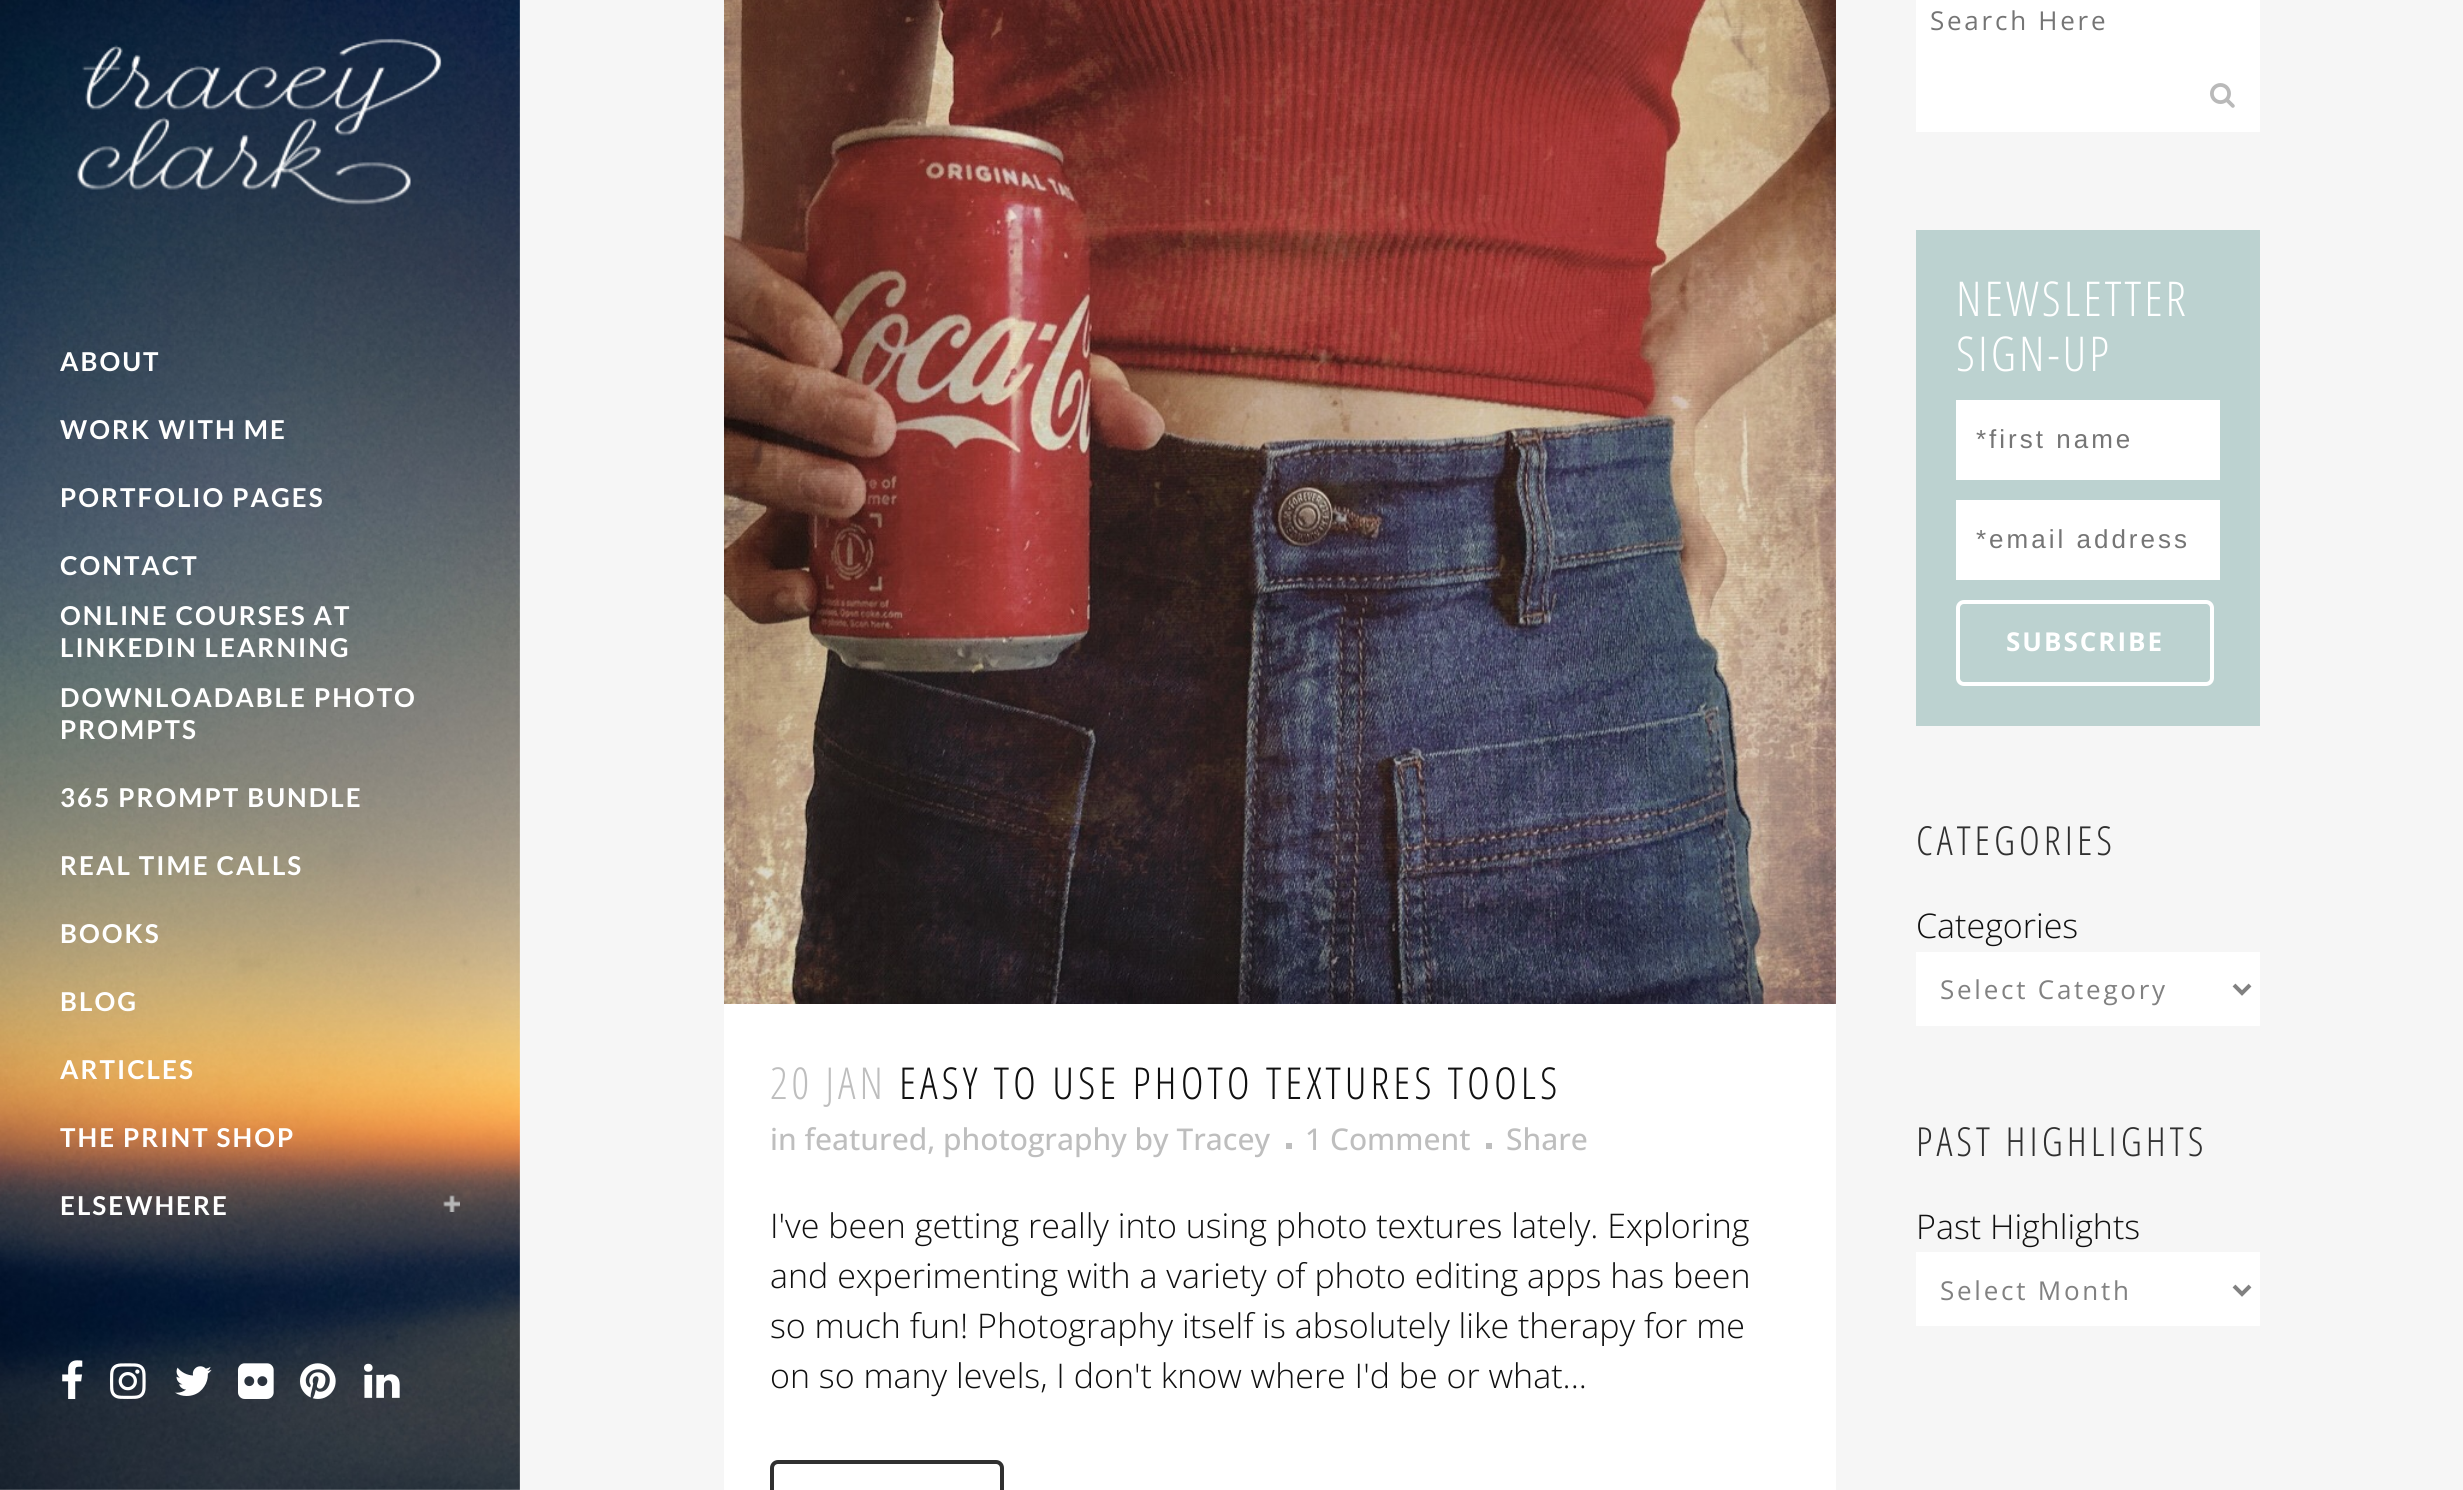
#include <cairo.h>
#include <math.h>
#include <stddef.h>

typedef struct { double x, y; const char *s; } line_t;

static void ink(cairo_t *ctx, unsigned color) {
    cairo_set_source_rgb(ctx, (color >> 16) / 255.0, (color >> 8 & 255) / 255.0, (color & 255) / 255.0);
}

static void write_spaced(cairo_t *ctx, double x, double y, const char *s, double letter, double word) {
    cairo_move_to(ctx, x, y);
    while (*s) {
        char ch[5] = {0};
        int n = 0;
        do ch[n++] = *s++; while ((*s & 0xC0) == 0x80);
        cairo_show_text(ctx, ch);
        cairo_rel_move_to(ctx, letter + word * (*ch == ' '), 0);
    }
}

static void round_path(cairo_t *ctx, double x, double y, double w, double h, double r) {
    cairo_new_sub_path(ctx);
    cairo_arc(ctx, x + w - r, y + h - r, r, 0, M_PI / 2);
    cairo_arc(ctx, x + r, y + h - r, r, M_PI / 2, M_PI);
    cairo_arc(ctx, x + r, y + r, r, M_PI, 1.5 * M_PI);
    cairo_arc(ctx, x + w - r, y + r, r, 1.5 * M_PI, 2 * M_PI);
    cairo_close_path(ctx);
}

static void paste(cairo_t *ctx, const char *path, double x, double y, double w, double h) {
    cairo_surface_t *image = cairo_image_surface_create_from_png(path);
    cairo_save(ctx);
    cairo_set_source_surface(ctx, image, x, y);
    cairo_rectangle(ctx, x, y, w, h);
    cairo_fill(ctx);
    cairo_restore(ctx);
    cairo_surface_destroy(image);
}

int main(void) {
    cairo_surface_t *surface = cairo_image_surface_create(CAIRO_FORMAT_RGB24, 2463, 1490);
    cairo_t *ctx = cairo_create(surface);
    cairo_font_options_t *options = cairo_font_options_create();
    cairo_font_options_set_hint_metrics(options, CAIRO_HINT_METRICS_OFF);
    cairo_font_options_set_hint_style(options, CAIRO_HINT_STYLE_NONE);
    cairo_set_font_options(ctx, options);
    cairo_set_miter_limit(ctx, 4);
    ink(ctx, 0xF6F6F6);
    cairo_paint(ctx);
    paste(ctx, "media/1.png", 0, 0, 520, 1490);
    paste(ctx, "media/2.png", 77, 38, 365, 167);
    cairo_select_font_face(ctx, "Lato", CAIRO_FONT_SLANT_NORMAL, CAIRO_FONT_WEIGHT_BOLD);
    cairo_set_font_size(ctx, 26);
    ink(ctx, 0xFFFFFF);
    {
        static const line_t items[] = {
            {60, 371, "ABOUT"},
            {60, 439, "WORK WITH ME"},
            {60, 507, "PORTFOLIO PAGES"},
            {60, 575, "CONTACT"},
            {60, 625, "ONLINE COURSES AT"},
            {60, 657, "LINKEDIN LEARNING"},
            {60, 707, "DOWNLOADABLE PHOTO"},
            {60, 739, "PROMPTS"},
            {60, 807, "365 PROMPT BUNDLE"},
            {60, 875, "REAL TIME CALLS"},
            {60, 943, "BOOKS"},
            {60, 1011, "BLOG"},
            {60, 1079, "ARTICLES"},
            {60, 1147, "THE PRINT SHOP"},
            {60, 1215, "ELSEWHERE"},
        };
        for (size_t i = 0; i < sizeof items / sizeof *items; i++) {
            write_spaced(ctx, items[i].x, items[i].y, items[i].s, 2, 0);
        }
    }
    paste(ctx, "media/3.png", 443, 1195, 17, 17);
    paste(ctx, "media/4.png", 62, 1360, 21, 39);
    paste(ctx, "media/5.png", 110, 1363, 36, 36);
    paste(ctx, "media/6.png", 175, 1366, 37, 30);
    paste(ctx, "media/7.png", 238, 1363, 36, 36);
    paste(ctx, "media/8.png", 300, 1363, 36, 36);
    paste(ctx, "media/9.png", 364, 1363, 36, 35);
    paste(ctx, "media/10.png", 724, 0, 1112, 1004);
    cairo_rectangle(ctx, 724, 1004, 1112, 486);
    cairo_fill(ctx);
    cairo_select_font_face(ctx, "Open Sans Condensed Light", CAIRO_FONT_SLANT_NORMAL, CAIRO_FONT_WEIGHT_NORMAL);
    cairo_set_font_size(ctx, 44);
    ink(ctx, 0xBEBEBE);
    write_spaced(ctx, 770, 1099, "20 JAN", 4, 0);
    ink(ctx, 0x111111);
    write_spaced(ctx, 899, 1099, "EASY TO USE PHOTO TEXTURES TOOLS", 4, 0);
    cairo_select_font_face(ctx, "Open Sans Medium", CAIRO_FONT_SLANT_NORMAL, CAIRO_FONT_WEIGHT_NORMAL);
    cairo_set_font_size(ctx, 30);
    ink(ctx, 0xBEBEBE);
    cairo_move_to(ctx, 770, 1150);
    cairo_show_text(ctx, "in featured, photography by Tracey");
    cairo_rectangle(ctx, 1286, 1143, 6, 6);
    cairo_fill(ctx);
    cairo_move_to(ctx, 1305, 1150);
    cairo_show_text(ctx, "1 Comment");
    cairo_rectangle(ctx, 1486, 1143, 6, 6);
    cairo_fill(ctx);
    cairo_move_to(ctx, 1506, 1150);
    cairo_show_text(ctx, "Share");
    cairo_select_font_face(ctx, "Open Sans Light", CAIRO_FONT_SLANT_NORMAL, CAIRO_FONT_WEIGHT_NORMAL);
    cairo_set_font_size(ctx, 34);
    ink(ctx, 0x111111);
    {
        static const line_t items[] = {
            {770, 1238, "I've been getting really into using photo textures lately. Exploring"},
            {770, 1288, "and experimenting with a variety of photo editing apps has been"},
            {770, 1338, "so much fun! Photography itself is absolutely like therapy for me"},
            {770, 1388, "on so many levels, I don't know where I'd be or what..."},
        };
        for (size_t i = 0; i < sizeof items / sizeof *items; i++) {
            cairo_move_to(ctx, items[i].x, items[i].y);
            cairo_show_text(ctx, items[i].s);
        }
    }
    round_path(ctx, 772, 1462, 230, 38, 6);
    ink(ctx, 0x303030);
    cairo_set_line_width(ctx, 4);
    cairo_stroke(ctx);
    ink(ctx, 0xFFFFFF);
    cairo_rectangle(ctx, 1916, 0, 344, 132);
    cairo_fill(ctx);
    cairo_select_font_face(ctx, "Open Sans", CAIRO_FONT_SLANT_NORMAL, CAIRO_FONT_WEIGHT_NORMAL);
    cairo_set_font_size(ctx, 26);
    ink(ctx, 0x757575);
    write_spaced(ctx, 1930, 30, "Search Here", 2.75, 0);
    paste(ctx, "media/11.png", 2210, 83, 25, 25);
    ink(ctx, 0xBCD2D0);
    cairo_rectangle(ctx, 1916, 230, 344, 496);
    cairo_fill(ctx);
    cairo_select_font_face(ctx, "Open Sans Condensed Light", CAIRO_FONT_SLANT_NORMAL, CAIRO_FONT_WEIGHT_NORMAL);
    cairo_set_font_size(ctx, 48);
    ink(ctx, 0xFFFFFF);
    write_spaced(ctx, 1956, 316, "NEWSLETTER", 3, 0);
    write_spaced(ctx, 1956, 371, "SIGN-UP", 3, 0);
    cairo_rectangle(ctx, 1956, 400, 264, 80);
    cairo_fill(ctx);
    cairo_select_font_face(ctx, "Liberation Sans", CAIRO_FONT_SLANT_NORMAL, CAIRO_FONT_WEIGHT_NORMAL);
    cairo_set_font_size(ctx, 26);
    ink(ctx, 0x757575);
    write_spaced(ctx, 1976, 448, "*first name", 3, 0);
    ink(ctx, 0xFFFFFF);
    cairo_rectangle(ctx, 1956, 500, 264, 80);
    cairo_fill(ctx);
    ink(ctx, 0x757575);
    write_spaced(ctx, 1976, 548, "*email address", 3, 0);
    round_path(ctx, 1958, 602, 254, 82, 6);
    ink(ctx, 0xFFFFFF);
    cairo_stroke(ctx);
    cairo_select_font_face(ctx, "Open Sans", CAIRO_FONT_SLANT_NORMAL, CAIRO_FONT_WEIGHT_BOLD);
    write_spaced(ctx, 2006, 651, "SUBSCRIBE", 2, 0);
    cairo_select_font_face(ctx, "Open Sans Condensed Light", CAIRO_FONT_SLANT_NORMAL, CAIRO_FONT_WEIGHT_NORMAL);
    cairo_set_font_size(ctx, 40);
    ink(ctx, 0x303030);
    write_spaced(ctx, 1916, 855, "CATEGORIES", 4, 0);
    cairo_select_font_face(ctx, "Open Sans Light", CAIRO_FONT_SLANT_NORMAL, CAIRO_FONT_WEIGHT_NORMAL);
    cairo_set_font_size(ctx, 34);
    ink(ctx, 0x111111);
    cairo_move_to(ctx, 1916, 938);
    cairo_show_text(ctx, "Categories");
    ink(ctx, 0xFFFFFF);
    cairo_rectangle(ctx, 1916, 952, 344, 74);
    cairo_fill(ctx);
    cairo_new_path(ctx);
    cairo_move_to(ctx, 2234, 985);
    cairo_line_to(ctx, 2242, 993);
    cairo_line_to(ctx, 2250, 985);
    ink(ctx, 0x818181);
    cairo_stroke(ctx);
    cairo_select_font_face(ctx, "Open Sans", CAIRO_FONT_SLANT_NORMAL, CAIRO_FONT_WEIGHT_NORMAL);
    cairo_set_font_size(ctx, 26);
    write_spaced(ctx, 1940, 999, "Select Category", 2.75, 0);
    cairo_select_font_face(ctx, "Open Sans Condensed Light", CAIRO_FONT_SLANT_NORMAL, CAIRO_FONT_WEIGHT_NORMAL);
    cairo_set_font_size(ctx, 40);
    ink(ctx, 0x303030);
    write_spaced(ctx, 1916, 1156, "PAST HIGHLIGHTS", 4, 0);
    cairo_select_font_face(ctx, "Open Sans Light", CAIRO_FONT_SLANT_NORMAL, CAIRO_FONT_WEIGHT_NORMAL);
    cairo_set_font_size(ctx, 34);
    ink(ctx, 0x111111);
    cairo_move_to(ctx, 1916, 1239);
    cairo_show_text(ctx, "Past Highlights");
    ink(ctx, 0xFFFFFF);
    cairo_rectangle(ctx, 1916, 1252, 344, 74);
    cairo_fill(ctx);
    cairo_new_path(ctx);
    cairo_move_to(ctx, 2234, 1286);
    cairo_line_to(ctx, 2242, 1294);
    cairo_line_to(ctx, 2250, 1286);
    ink(ctx, 0x818181);
    cairo_stroke(ctx);
    cairo_select_font_face(ctx, "Open Sans", CAIRO_FONT_SLANT_NORMAL, CAIRO_FONT_WEIGHT_NORMAL);
    cairo_set_font_size(ctx, 26);
    write_spaced(ctx, 1940, 1300, "Select Month", 2.75, 0);
    cairo_surface_write_to_png(surface, "image.png");
    cairo_font_options_destroy(options);
    cairo_destroy(ctx);
    cairo_surface_destroy(surface);
    return 0;
}
